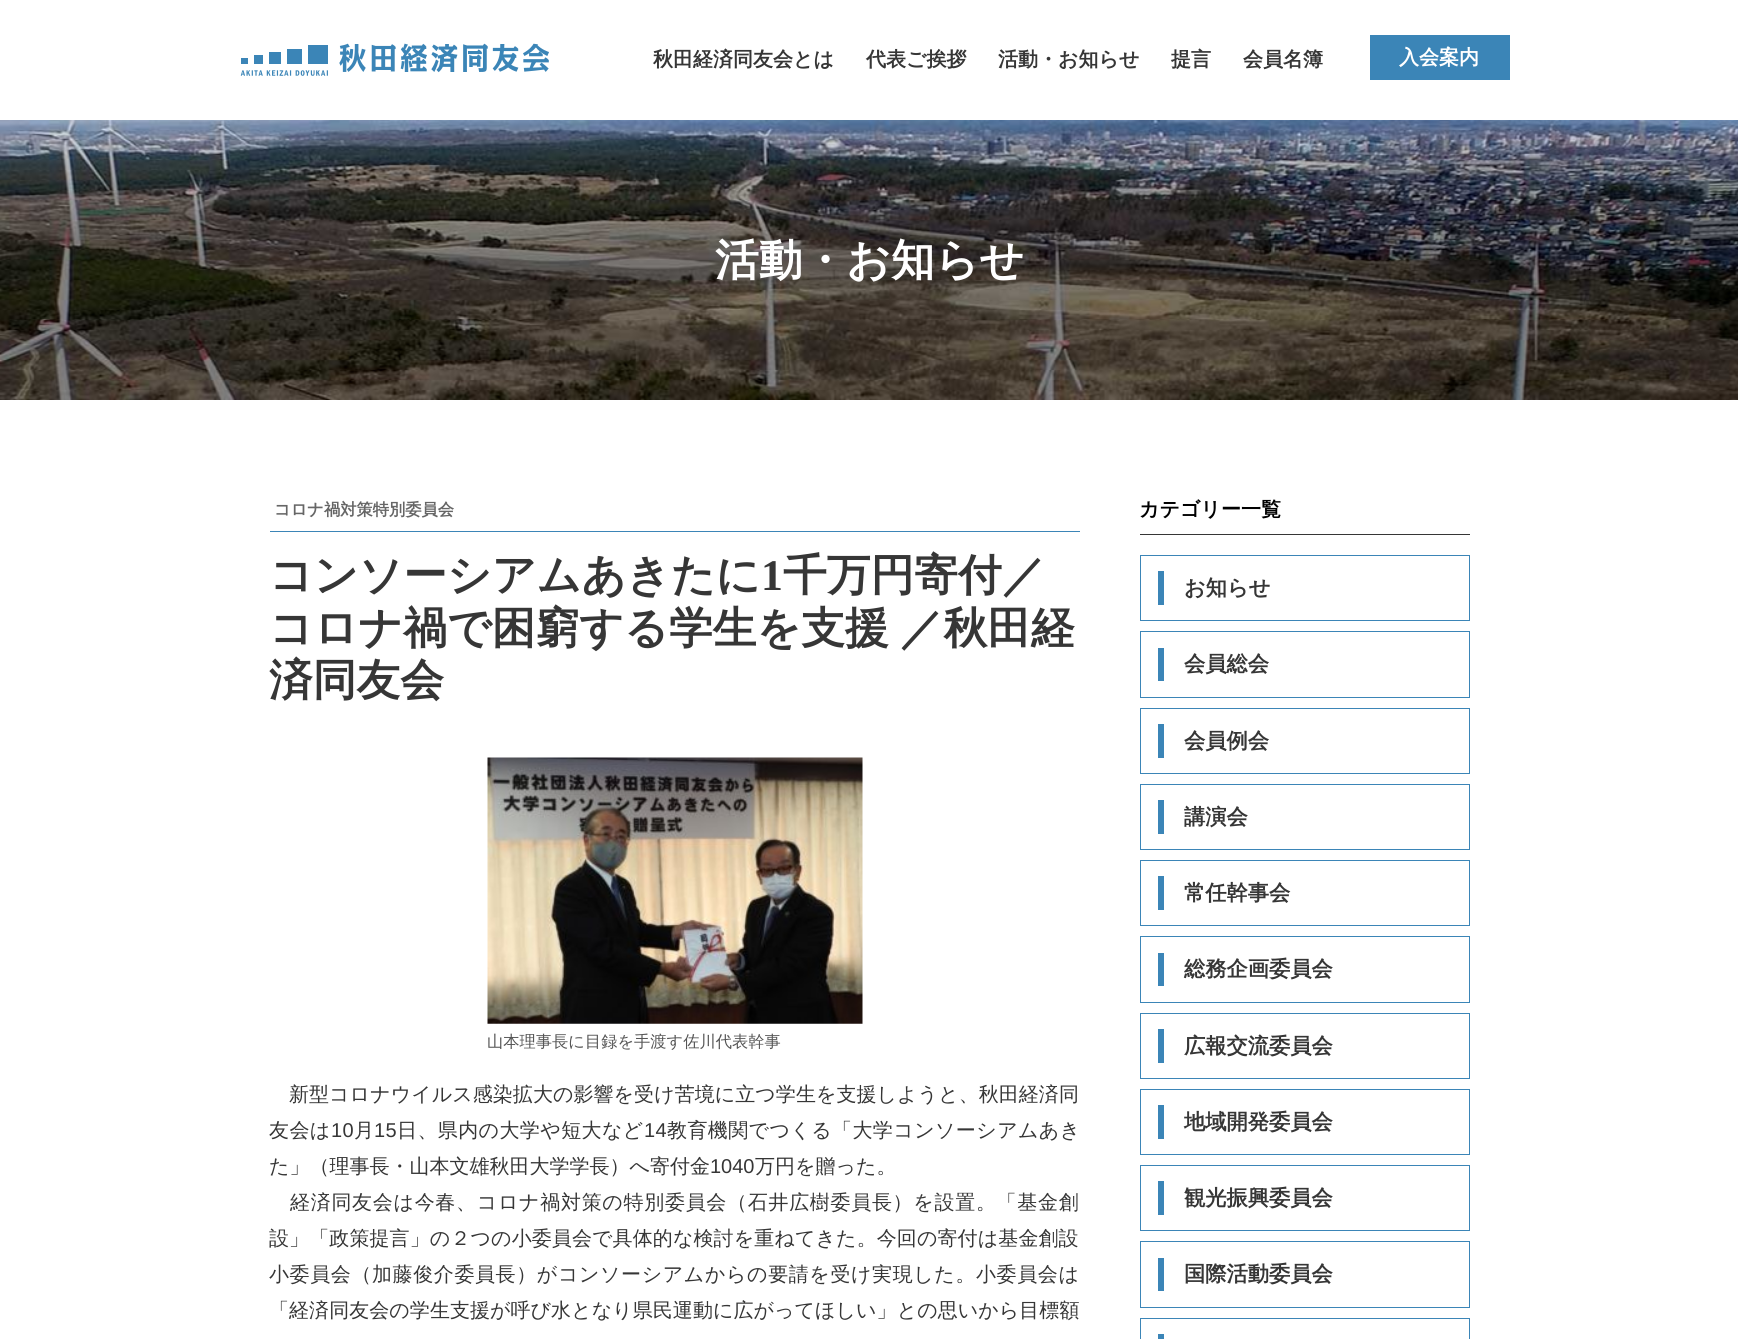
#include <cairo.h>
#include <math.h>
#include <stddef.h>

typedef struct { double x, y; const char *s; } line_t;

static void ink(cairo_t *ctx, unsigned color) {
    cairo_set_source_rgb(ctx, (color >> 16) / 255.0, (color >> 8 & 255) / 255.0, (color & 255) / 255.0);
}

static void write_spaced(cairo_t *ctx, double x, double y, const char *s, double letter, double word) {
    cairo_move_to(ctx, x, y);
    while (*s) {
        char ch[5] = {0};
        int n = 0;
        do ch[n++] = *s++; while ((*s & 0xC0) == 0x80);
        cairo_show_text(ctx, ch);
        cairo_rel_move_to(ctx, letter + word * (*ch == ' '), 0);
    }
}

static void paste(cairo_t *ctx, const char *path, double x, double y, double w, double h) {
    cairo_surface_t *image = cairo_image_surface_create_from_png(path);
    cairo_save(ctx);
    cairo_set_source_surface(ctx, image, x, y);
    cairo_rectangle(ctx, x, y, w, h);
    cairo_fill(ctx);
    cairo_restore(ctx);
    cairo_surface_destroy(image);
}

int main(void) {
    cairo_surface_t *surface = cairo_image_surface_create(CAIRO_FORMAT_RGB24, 1738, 1339);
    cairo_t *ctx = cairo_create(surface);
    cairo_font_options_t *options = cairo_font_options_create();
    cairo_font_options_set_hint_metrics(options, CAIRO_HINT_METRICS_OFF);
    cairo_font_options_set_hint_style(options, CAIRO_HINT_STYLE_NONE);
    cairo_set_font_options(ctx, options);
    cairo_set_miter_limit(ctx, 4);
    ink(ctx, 0xFFFFFF);
    cairo_paint(ctx);
    paste(ctx, "media/1.png", 240, 43, 309, 33);
    cairo_select_font_face(ctx, "WenQuanYi Zen Hei", CAIRO_FONT_SLANT_NORMAL, CAIRO_FONT_WEIGHT_BOLD);
    cairo_set_font_size(ctx, 20);
    ink(ctx, 0x363636);
    {
        static const line_t items[] = {
            {653, 66, "秋田経済同友会とは"},
            {866, 66, "代表ご挨拶"},
            {998, 66, "活動・お知らせ"},
            {1171, 66, "提言"},
            {1243, 66, "会員名簿"},
        };
        for (size_t i = 0; i < sizeof items / sizeof *items; i++) {
            cairo_move_to(ctx, items[i].x, items[i].y);
            cairo_show_text(ctx, items[i].s);
        }
    }
    ink(ctx, 0x3B85B7);
    cairo_rectangle(ctx, 1370, 35, 140, 45);
    cairo_fill(ctx);
    ink(ctx, 0xFFFFFF);
    cairo_move_to(ctx, 1399, 64);
    cairo_show_text(ctx, "入会案内");
    paste(ctx, "media/2.png", 0, 120, 1738, 280);
    cairo_set_font_size(ctx, 43.75);
    cairo_move_to(ctx, 715, 275);
    cairo_show_text(ctx, "活動・お知らせ");
    ink(ctx, 0x3B85B7);
    cairo_rectangle(ctx, 270, 531, 810, 1);
    cairo_fill(ctx);
    cairo_set_font_size(ctx, 16.25);
    ink(ctx, 0x666666);
    cairo_move_to(ctx, 274, 515);
    cairo_show_text(ctx, "コロナ禍対策特別委員会");
    cairo_set_font_size(ctx, 43.75);
    ink(ctx, 0x363636);
    cairo_move_to(ctx, 269, 590);
    cairo_show_text(ctx, "コンソーシアムあきたに");
    cairo_select_font_face(ctx, "Liberation Serif", CAIRO_FONT_SLANT_NORMAL, CAIRO_FONT_WEIGHT_BOLD);
    cairo_move_to(ctx, 761, 590);
    cairo_show_text(ctx, "1");
    cairo_select_font_face(ctx, "WenQuanYi Zen Hei", CAIRO_FONT_SLANT_NORMAL, CAIRO_FONT_WEIGHT_BOLD);
    cairo_move_to(ctx, 783, 590);
    cairo_show_text(ctx, "千万円寄付／");
    write_spaced(ctx, 269, 643, "コロナ禍で困窮する学生を支援 ／秋田経", 0, -2);
    cairo_move_to(ctx, 269, 695);
    cairo_show_text(ctx, "済同友会");
    paste(ctx, "media/3.png", 487, 757, 376, 267);
    cairo_select_font_face(ctx, "WenQuanYi Zen Hei Medium", CAIRO_FONT_SLANT_NORMAL, CAIRO_FONT_WEIGHT_NORMAL);
    cairo_set_font_size(ctx, 16.25);
    ink(ctx, 0x555555);
    cairo_move_to(ctx, 487, 1047);
    cairo_show_text(ctx, "山本理事長に目録を手渡す佐川代表幹事");
    cairo_set_font_size(ctx, 20);
    ink(ctx, 0x363636);
    write_spaced(ctx, 289, 1101, "新型コロナウイルス感染拡大の影響を受け苦境に立つ学生を支援しようと、秋田経済同", 0.05, 0);
    write_spaced(ctx, 269, 1137, "友会は", 0.4, 0);
    cairo_select_font_face(ctx, "Liberation Sans", CAIRO_FONT_SLANT_NORMAL, CAIRO_FONT_WEIGHT_NORMAL);
    write_spaced(ctx, 331, 1137, "10", 0.4, 0);
    cairo_select_font_face(ctx, "WenQuanYi Zen Hei Medium", CAIRO_FONT_SLANT_NORMAL, CAIRO_FONT_WEIGHT_NORMAL);
    write_spaced(ctx, 354, 1137, "月", 0.4, 0);
    cairo_select_font_face(ctx, "Liberation Sans", CAIRO_FONT_SLANT_NORMAL, CAIRO_FONT_WEIGHT_NORMAL);
    write_spaced(ctx, 374, 1137, "15", 0.4, 0);
    cairo_select_font_face(ctx, "WenQuanYi Zen Hei Medium", CAIRO_FONT_SLANT_NORMAL, CAIRO_FONT_WEIGHT_NORMAL);
    write_spaced(ctx, 397, 1137, "日、県内の大学や短大など", 0.4, 0);
    cairo_select_font_face(ctx, "Liberation Sans", CAIRO_FONT_SLANT_NORMAL, CAIRO_FONT_WEIGHT_NORMAL);
    write_spaced(ctx, 644, 1137, "14", 0.4, 0);
    cairo_select_font_face(ctx, "WenQuanYi Zen Hei Medium", CAIRO_FONT_SLANT_NORMAL, CAIRO_FONT_WEIGHT_NORMAL);
    write_spaced(ctx, 667, 1137, "教育機関でつくる「大学コンソーシアムあき", 0.4, 0);
    cairo_move_to(ctx, 269, 1173);
    cairo_show_text(ctx, "た」（理事長・山本文雄秋田大学学長）へ寄付金");
    cairo_select_font_face(ctx, "Liberation Sans", CAIRO_FONT_SLANT_NORMAL, CAIRO_FONT_WEIGHT_NORMAL);
    cairo_move_to(ctx, 710, 1173);
    cairo_show_text(ctx, "1040");
    cairo_select_font_face(ctx, "WenQuanYi Zen Hei Medium", CAIRO_FONT_SLANT_NORMAL, CAIRO_FONT_WEIGHT_NORMAL);
    cairo_move_to(ctx, 755, 1173);
    cairo_show_text(ctx, "万円を贈った。");
    write_spaced(ctx, 290, 1209, "経済同友会は今春、コロナ禍対策の特別委員会（石井広樹委員長）を設置。「基金創", 0.7, 0);
    write_spaced(ctx, 269, 1245, "設」「政策提言」の２つの小委員会で具体的な検討を重ねてきた。今回の寄付は基金創設", 0.1, 0);
    write_spaced(ctx, 269, 1281, "小委員会（加藤俊介委員長）がコンソーシアムからの要請を受け実現した。小委員会は", 0.6, 0);
    write_spaced(ctx, 269, 1317, "「経済同友会の学生支援が呼び水となり県民運動に広がってほしい」との思いから目標額", 0.05, 0);
    cairo_rectangle(ctx, 1140, 534, 330, 1);
    cairo_fill(ctx);
    cairo_select_font_face(ctx, "WenQuanYi Zen Hei", CAIRO_FONT_SLANT_NORMAL, CAIRO_FONT_WEIGHT_BOLD);
    ink(ctx, 0x000000);
    cairo_move_to(ctx, 1139, 516);
    cairo_show_text(ctx, "カテゴリー一覧");
    cairo_rectangle(ctx, 1140.5, 555.5, 329, 65);
    ink(ctx, 0x3B85B7);
    cairo_set_line_width(ctx, 1);
    cairo_stroke(ctx);
    cairo_rectangle(ctx, 1158, 571, 6, 34);
    cairo_fill(ctx);
    cairo_set_font_size(ctx, 21.25);
    ink(ctx, 0x363636);
    cairo_move_to(ctx, 1184, 595);
    cairo_show_text(ctx, "お知らせ");
    cairo_rectangle(ctx, 1140.5, 631.5, 329, 66);
    ink(ctx, 0x3B85B7);
    cairo_stroke(ctx);
    cairo_rectangle(ctx, 1158, 648, 6, 33);
    cairo_fill(ctx);
    ink(ctx, 0x363636);
    cairo_move_to(ctx, 1184, 671);
    cairo_show_text(ctx, "会員総会");
    cairo_rectangle(ctx, 1140.5, 708.5, 329, 65);
    ink(ctx, 0x3B85B7);
    cairo_stroke(ctx);
    cairo_rectangle(ctx, 1158, 724, 6, 34);
    cairo_fill(ctx);
    ink(ctx, 0x363636);
    cairo_move_to(ctx, 1184, 748);
    cairo_show_text(ctx, "会員例会");
    cairo_rectangle(ctx, 1140.5, 784.5, 329, 65);
    ink(ctx, 0x3B85B7);
    cairo_stroke(ctx);
    cairo_rectangle(ctx, 1158, 800, 6, 34);
    cairo_fill(ctx);
    ink(ctx, 0x363636);
    cairo_move_to(ctx, 1184, 824);
    cairo_show_text(ctx, "講演会");
    cairo_rectangle(ctx, 1140.5, 860.5, 329, 65);
    ink(ctx, 0x3B85B7);
    cairo_stroke(ctx);
    cairo_rectangle(ctx, 1158, 876, 6, 34);
    cairo_fill(ctx);
    ink(ctx, 0x363636);
    cairo_move_to(ctx, 1184, 900);
    cairo_show_text(ctx, "常任幹事会");
    cairo_rectangle(ctx, 1140.5, 936.5, 329, 66);
    ink(ctx, 0x3B85B7);
    cairo_stroke(ctx);
    cairo_rectangle(ctx, 1158, 953, 6, 33);
    cairo_fill(ctx);
    ink(ctx, 0x363636);
    cairo_move_to(ctx, 1184, 976);
    cairo_show_text(ctx, "総務企画委員会");
    cairo_rectangle(ctx, 1140.5, 1013.5, 329, 65);
    ink(ctx, 0x3B85B7);
    cairo_stroke(ctx);
    cairo_rectangle(ctx, 1158, 1029, 6, 34);
    cairo_fill(ctx);
    ink(ctx, 0x363636);
    cairo_move_to(ctx, 1184, 1053);
    cairo_show_text(ctx, "広報交流委員会");
    cairo_rectangle(ctx, 1140.5, 1089.5, 329, 65);
    ink(ctx, 0x3B85B7);
    cairo_stroke(ctx);
    cairo_rectangle(ctx, 1158, 1105, 6, 34);
    cairo_fill(ctx);
    ink(ctx, 0x363636);
    cairo_move_to(ctx, 1184, 1129);
    cairo_show_text(ctx, "地域開発委員会");
    cairo_rectangle(ctx, 1140.5, 1165.5, 329, 65);
    ink(ctx, 0x3B85B7);
    cairo_stroke(ctx);
    cairo_rectangle(ctx, 1158, 1181, 6, 34);
    cairo_fill(ctx);
    ink(ctx, 0x363636);
    cairo_move_to(ctx, 1184, 1205);
    cairo_show_text(ctx, "観光振興委員会");
    cairo_rectangle(ctx, 1140.5, 1241.5, 329, 66);
    ink(ctx, 0x3B85B7);
    cairo_stroke(ctx);
    cairo_rectangle(ctx, 1158, 1258, 6, 33);
    cairo_fill(ctx);
    ink(ctx, 0x363636);
    cairo_move_to(ctx, 1184, 1281);
    cairo_show_text(ctx, "国際活動委員会");
    cairo_rectangle(ctx, 1140.5, 1318.5, 329, 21);
    ink(ctx, 0x3B85B7);
    cairo_stroke(ctx);
    cairo_rectangle(ctx, 1158, 1334, 6, 5);
    cairo_fill(ctx);
    cairo_surface_write_to_png(surface, "image.png");
    cairo_font_options_destroy(options);
    cairo_destroy(ctx);
    cairo_surface_destroy(surface);
    return 0;
}
